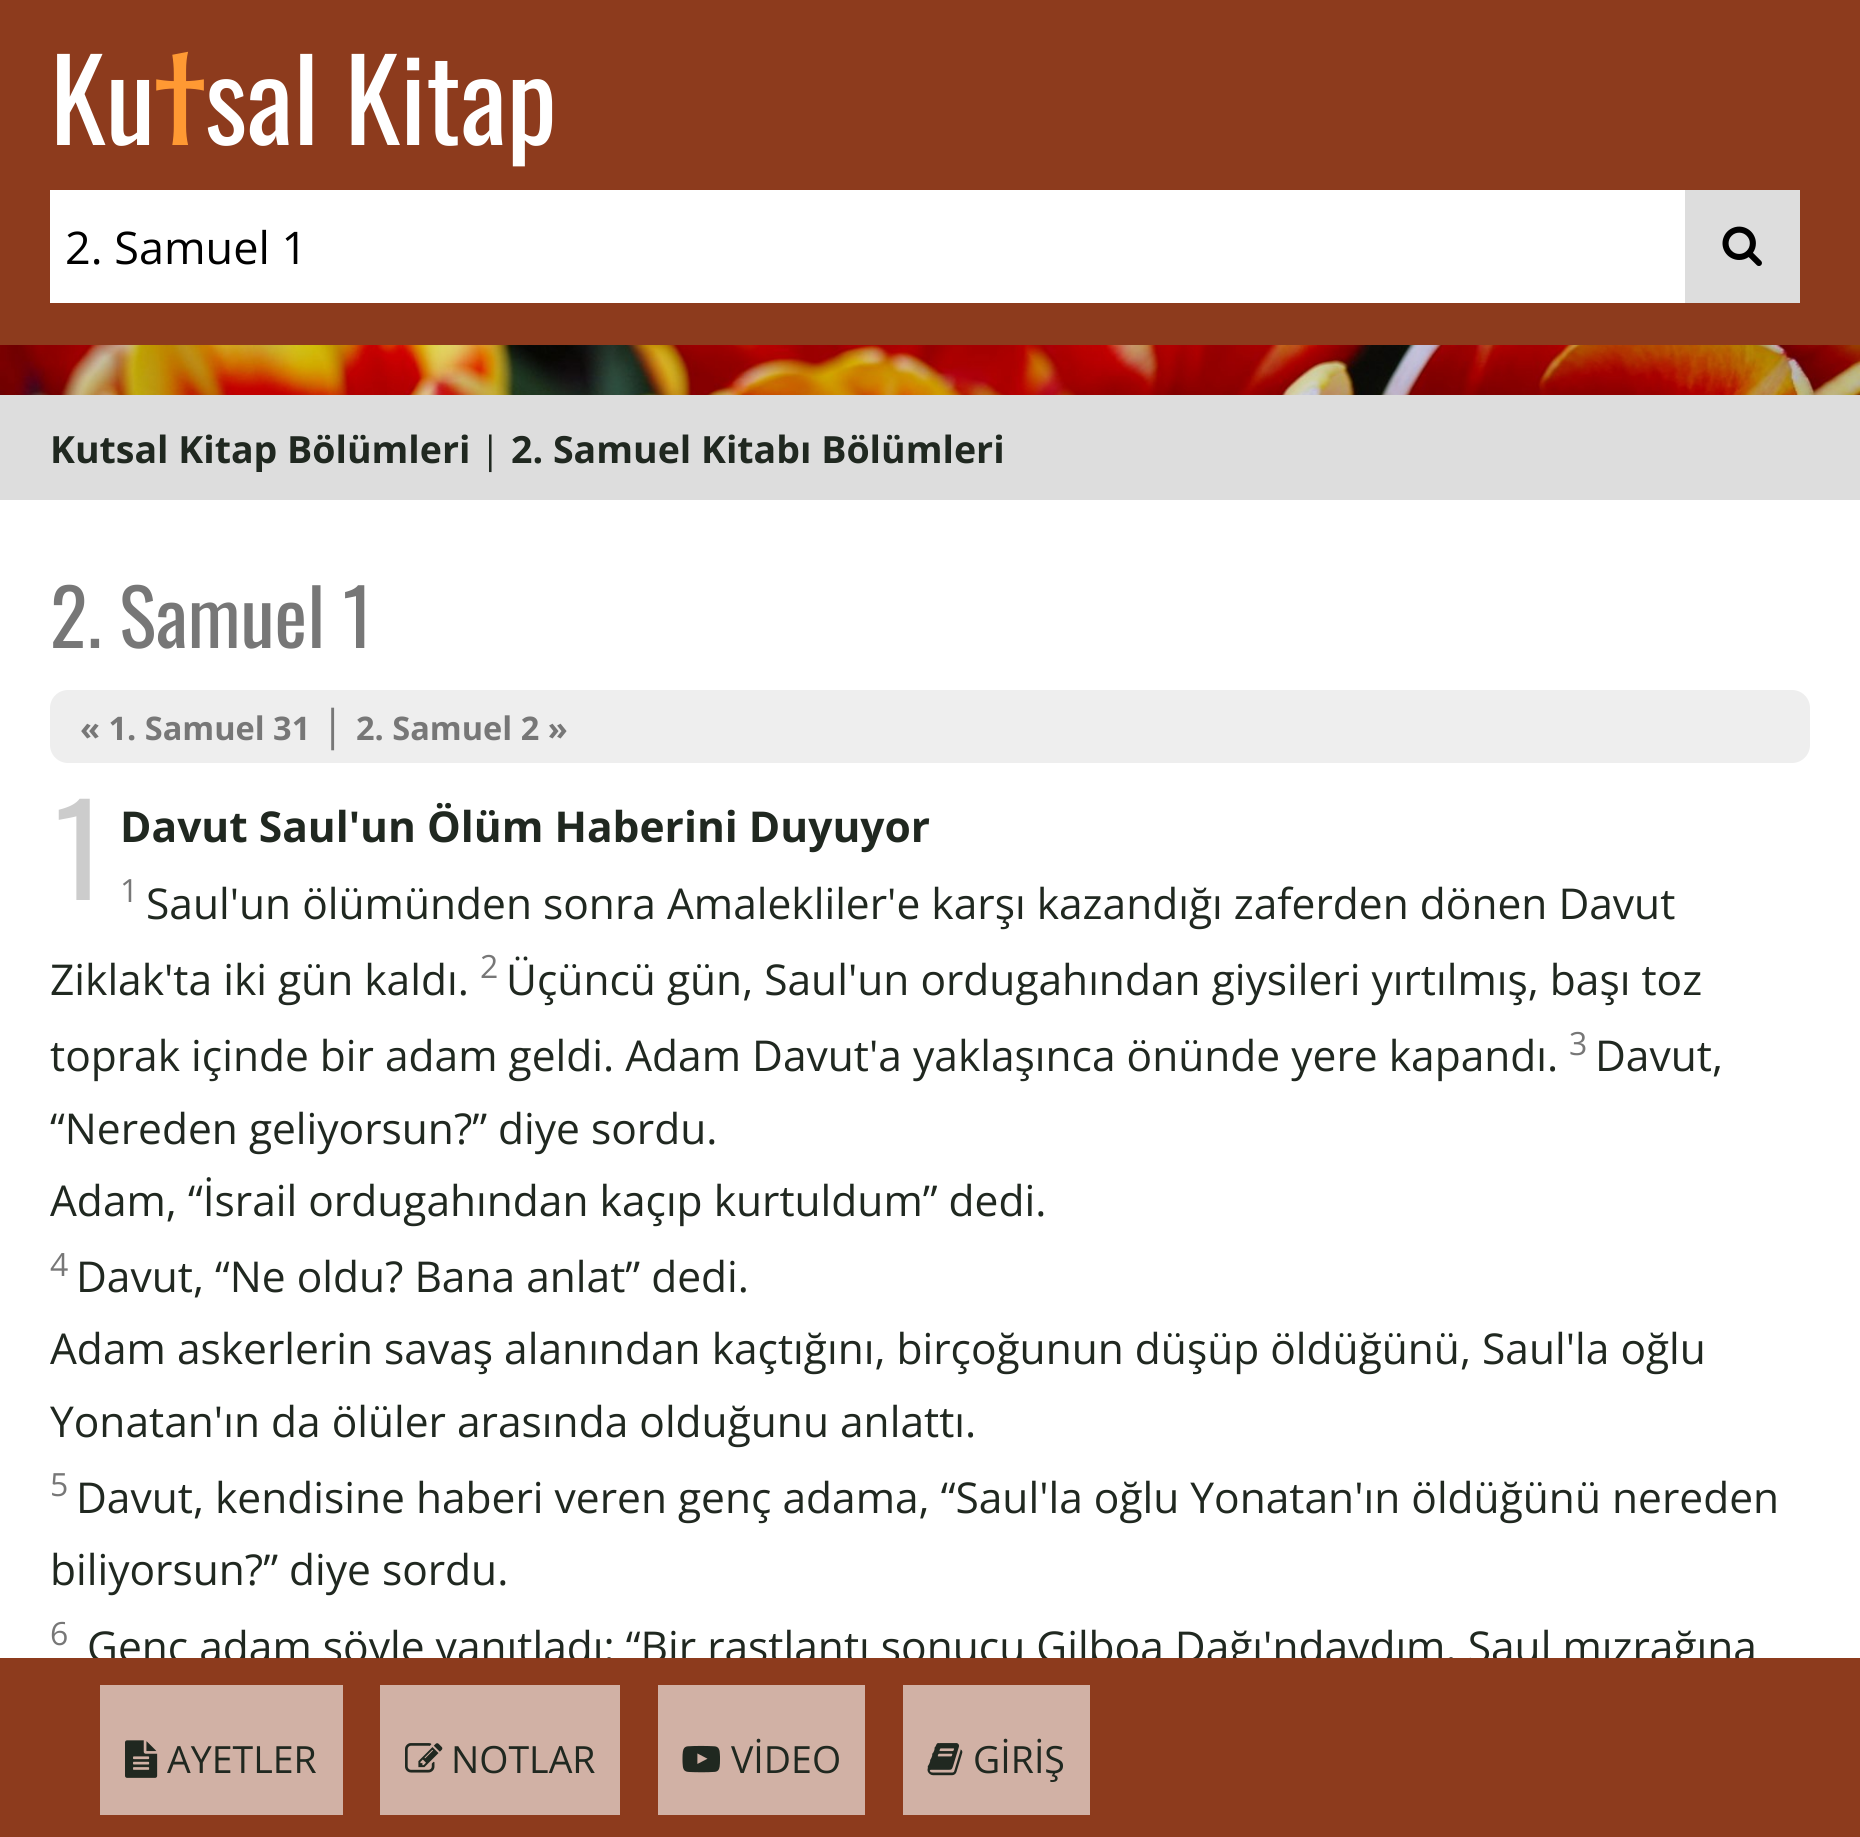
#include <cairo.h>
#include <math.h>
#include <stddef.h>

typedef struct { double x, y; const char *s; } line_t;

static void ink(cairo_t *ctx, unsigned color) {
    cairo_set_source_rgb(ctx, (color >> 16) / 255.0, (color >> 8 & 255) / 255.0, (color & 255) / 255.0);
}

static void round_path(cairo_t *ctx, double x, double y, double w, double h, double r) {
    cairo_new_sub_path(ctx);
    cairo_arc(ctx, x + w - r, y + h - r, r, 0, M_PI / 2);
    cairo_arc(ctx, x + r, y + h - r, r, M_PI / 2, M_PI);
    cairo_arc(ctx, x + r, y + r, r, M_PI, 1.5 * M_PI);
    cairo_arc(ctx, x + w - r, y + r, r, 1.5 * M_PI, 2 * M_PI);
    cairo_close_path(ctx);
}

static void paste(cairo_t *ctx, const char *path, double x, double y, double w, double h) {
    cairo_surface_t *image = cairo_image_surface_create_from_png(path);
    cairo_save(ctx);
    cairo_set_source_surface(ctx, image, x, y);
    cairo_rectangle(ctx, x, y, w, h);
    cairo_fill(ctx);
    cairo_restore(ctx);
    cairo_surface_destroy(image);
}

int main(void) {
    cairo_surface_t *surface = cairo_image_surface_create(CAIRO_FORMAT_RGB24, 1860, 1837);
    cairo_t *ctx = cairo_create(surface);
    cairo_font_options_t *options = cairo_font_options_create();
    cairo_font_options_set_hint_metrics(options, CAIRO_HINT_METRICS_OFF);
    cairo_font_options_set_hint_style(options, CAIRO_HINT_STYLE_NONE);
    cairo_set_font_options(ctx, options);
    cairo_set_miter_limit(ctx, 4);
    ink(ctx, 0xFFFFFF);
    cairo_paint(ctx);
    ink(ctx, 0x8D3B1D);
    cairo_rectangle(ctx, 0, 0, 1860, 345);
    cairo_fill(ctx);
    cairo_select_font_face(ctx, "Oswald", CAIRO_FONT_SLANT_NORMAL, CAIRO_FONT_WEIGHT_NORMAL);
    cairo_set_font_size(ctx, 112.5);
    ink(ctx, 0xFFFFFF);
    cairo_move_to(ctx, 50, 145);
    cairo_show_text(ctx, "Ku");
    cairo_select_font_face(ctx, "Tenali Ramakrishna", CAIRO_FONT_SLANT_NORMAL, CAIRO_FONT_WEIGHT_NORMAL);
    cairo_set_font_size(ctx, 188);
    ink(ctx, 0xFF9933);
    cairo_move_to(ctx, 155, 145);
    cairo_show_text(ctx, "t");
    cairo_select_font_face(ctx, "Oswald", CAIRO_FONT_SLANT_NORMAL, CAIRO_FONT_WEIGHT_NORMAL);
    cairo_set_font_size(ctx, 112.5);
    ink(ctx, 0xFFFFFF);
    cairo_move_to(ctx, 205, 145);
    cairo_show_text(ctx, "sal Kitap");
    cairo_rectangle(ctx, 50, 190, 1635, 113);
    cairo_fill(ctx);
    cairo_select_font_face(ctx, "Open Sans", CAIRO_FONT_SLANT_NORMAL, CAIRO_FONT_WEIGHT_NORMAL);
    cairo_set_font_size(ctx, 45);
    ink(ctx, 0x000000);
    cairo_move_to(ctx, 65, 264);
    cairo_show_text(ctx, "2. Samuel 1");
    ink(ctx, 0xDDDDDD);
    cairo_rectangle(ctx, 1685, 190, 115, 113);
    cairo_fill(ctx);
    paste(ctx, "media/1.png", 1722, 226, 40, 40);
    paste(ctx, "media/2.png", 0, 345, 1860, 50);
    cairo_rectangle(ctx, 0, 395, 1860, 105);
    cairo_fill(ctx);
    cairo_select_font_face(ctx, "Open Sans", CAIRO_FONT_SLANT_NORMAL, CAIRO_FONT_WEIGHT_BOLD);
    cairo_set_font_size(ctx, 37.5);
    ink(ctx, 0x202820);
    cairo_move_to(ctx, 50, 463);
    cairo_show_text(ctx, "Kutsal Kitap Bölümleri");
    cairo_select_font_face(ctx, "Open Sans", CAIRO_FONT_SLANT_NORMAL, CAIRO_FONT_WEIGHT_NORMAL);
    cairo_move_to(ctx, 480, 463);
    cairo_show_text(ctx, "|");
    cairo_select_font_face(ctx, "Open Sans", CAIRO_FONT_SLANT_NORMAL, CAIRO_FONT_WEIGHT_BOLD);
    cairo_move_to(ctx, 511, 463);
    cairo_show_text(ctx, "2. Samuel Kitabı Bölümleri");
    cairo_select_font_face(ctx, "Oswald", CAIRO_FONT_SLANT_NORMAL, CAIRO_FONT_WEIGHT_NORMAL);
    cairo_set_font_size(ctx, 77.5);
    ink(ctx, 0x777777);
    cairo_move_to(ctx, 50, 648);
    cairo_show_text(ctx, "2. Samuel 1");
    ink(ctx, 0xEEEEEE);
    round_path(ctx, 50, 690, 1760, 73, 18);
    cairo_fill(ctx);
    cairo_select_font_face(ctx, "Open Sans", CAIRO_FONT_SLANT_NORMAL, CAIRO_FONT_WEIGHT_BOLD);
    cairo_set_font_size(ctx, 32.5);
    ink(ctx, 0x777777);
    cairo_move_to(ctx, 80, 740);
    cairo_show_text(ctx, "« 1. Samuel 31");
    cairo_select_font_face(ctx, "Open Sans", CAIRO_FONT_SLANT_NORMAL, CAIRO_FONT_WEIGHT_NORMAL);
    cairo_set_font_size(ctx, 42.5);
    cairo_move_to(ctx, 321, 740);
    cairo_show_text(ctx, "|");
    cairo_select_font_face(ctx, "Open Sans", CAIRO_FONT_SLANT_NORMAL, CAIRO_FONT_WEIGHT_BOLD);
    cairo_set_font_size(ctx, 32.5);
    cairo_move_to(ctx, 356, 740);
    cairo_show_text(ctx, "2. Samuel 2 »");
    cairo_select_font_face(ctx, "Oswald", CAIRO_FONT_SLANT_NORMAL, CAIRO_FONT_WEIGHT_NORMAL);
    cairo_set_font_size(ctx, 125);
    ink(ctx, 0xCCCCCC);
    cairo_move_to(ctx, 55, 900);
    cairo_show_text(ctx, "1");
    cairo_select_font_face(ctx, "Open Sans", CAIRO_FONT_SLANT_NORMAL, CAIRO_FONT_WEIGHT_BOLD);
    cairo_set_font_size(ctx, 42.5);
    ink(ctx, 0x202820);
    cairo_move_to(ctx, 120, 842);
    cairo_show_text(ctx, "Davut Saul'un Ölüm Haberini Duyuyor");
    cairo_select_font_face(ctx, "Open Sans", CAIRO_FONT_SLANT_NORMAL, CAIRO_FONT_WEIGHT_NORMAL);
    cairo_set_font_size(ctx, 32);
    ink(ctx, 0x777777);
    cairo_move_to(ctx, 120, 902);
    cairo_show_text(ctx, "1");
    cairo_set_font_size(ctx, 42.5);
    ink(ctx, 0x202820);
    cairo_move_to(ctx, 146, 919);
    cairo_show_text(ctx, "Saul'un ölümünden sonra Amalekliler'e karşı kazandığı zaferden dönen Davut");
    cairo_move_to(ctx, 50, 995);
    cairo_show_text(ctx, "Ziklak'ta iki gün kaldı.");
    cairo_set_font_size(ctx, 32);
    ink(ctx, 0x777777);
    cairo_move_to(ctx, 480, 978);
    cairo_show_text(ctx, "2");
    cairo_set_font_size(ctx, 42.5);
    ink(ctx, 0x202820);
    cairo_move_to(ctx, 506, 995);
    cairo_show_text(ctx, "Üçüncü gün, Saul'un ordugahından giysileri yırtılmış, başı toz");
    cairo_move_to(ctx, 50, 1071);
    cairo_show_text(ctx, "toprak içinde bir adam geldi. Adam Davut'a yaklaşınca önünde yere kapandı.");
    cairo_set_font_size(ctx, 32);
    ink(ctx, 0x777777);
    cairo_move_to(ctx, 1569, 1055);
    cairo_show_text(ctx, "3");
    cairo_set_font_size(ctx, 42.5);
    ink(ctx, 0x202820);
    {
        static const line_t items[] = {
            {1595, 1071, "Davut,"},
            {50, 1144, "“Nereden geliyorsun?” diye sordu."},
            {50, 1216, "Adam, “İsrail ordugahından kaçıp kurtuldum” dedi."},
        };
        for (size_t i = 0; i < sizeof items / sizeof *items; i++) {
            cairo_move_to(ctx, items[i].x, items[i].y);
            cairo_show_text(ctx, items[i].s);
        }
    }
    cairo_set_font_size(ctx, 32);
    ink(ctx, 0x777777);
    cairo_move_to(ctx, 50, 1276);
    cairo_show_text(ctx, "4");
    cairo_set_font_size(ctx, 42.5);
    ink(ctx, 0x202820);
    {
        static const line_t items[] = {
            {76, 1292, "Davut, “Ne oldu? Bana anlat” dedi."},
            {50, 1364, "Adam askerlerin savaş alanından kaçtığını, birçoğunun düşüp öldüğünü, Saul'la oğlu"},
            {50, 1437, "Yonatan'ın da ölüler arasında olduğunu anlattı."},
        };
        for (size_t i = 0; i < sizeof items / sizeof *items; i++) {
            cairo_move_to(ctx, items[i].x, items[i].y);
            cairo_show_text(ctx, items[i].s);
        }
    }
    cairo_set_font_size(ctx, 32);
    ink(ctx, 0x777777);
    cairo_move_to(ctx, 50, 1496);
    cairo_show_text(ctx, "5");
    cairo_set_font_size(ctx, 42.5);
    ink(ctx, 0x202820);
    cairo_move_to(ctx, 76, 1513);
    cairo_show_text(ctx, "Davut, kendisine haberi veren genç adama, “Saul'la oğlu Yonatan'ın öldüğünü nereden");
    cairo_move_to(ctx, 50, 1585);
    cairo_show_text(ctx, "biliyorsun?” diye sordu.");
    cairo_set_font_size(ctx, 32);
    ink(ctx, 0x777777);
    cairo_move_to(ctx, 50, 1645);
    cairo_show_text(ctx, "6");
    cairo_set_font_size(ctx, 42.5);
    ink(ctx, 0x202820);
    cairo_move_to(ctx, 87, 1662);
    cairo_show_text(ctx, "Genç adam şöyle yanıtladı: “Bir rastlantı sonucu Gilboa Dağı'ndaydım. Saul mızrağına");
    ink(ctx, 0x8D3B1D);
    cairo_rectangle(ctx, 0, 1658, 1860, 179);
    cairo_fill(ctx);
    ink(ctx, 0xD1B1A5);
    cairo_rectangle(ctx, 100, 1685, 243, 130);
    cairo_fill(ctx);
    paste(ctx, "media/3.png", 125, 1740, 33, 38);
    cairo_set_font_size(ctx, 37.5);
    ink(ctx, 0x202820);
    cairo_move_to(ctx, 167, 1773);
    cairo_show_text(ctx, "AYETLER");
    ink(ctx, 0xD1B1A5);
    cairo_rectangle(ctx, 380, 1685, 240, 130);
    cairo_fill(ctx);
    paste(ctx, "media/4.png", 405, 1743, 38, 30);
    ink(ctx, 0x202820);
    cairo_move_to(ctx, 451, 1773);
    cairo_show_text(ctx, "NOTLAR");
    ink(ctx, 0xD1B1A5);
    cairo_rectangle(ctx, 658, 1685, 207, 130);
    cairo_fill(ctx);
    paste(ctx, "media/5.png", 682, 1745, 38, 28);
    ink(ctx, 0x202820);
    cairo_move_to(ctx, 731, 1773);
    cairo_show_text(ctx, "VİDEO");
    ink(ctx, 0xD1B1A5);
    cairo_rectangle(ctx, 903, 1685, 187, 130);
    cairo_fill(ctx);
    paste(ctx, "media/6.png", 927, 1743, 36, 33);
    ink(ctx, 0x202820);
    cairo_move_to(ctx, 973, 1773);
    cairo_show_text(ctx, "GİRİŞ");
    cairo_surface_write_to_png(surface, "image.png");
    cairo_font_options_destroy(options);
    cairo_destroy(ctx);
    cairo_surface_destroy(surface);
    return 0;
}
